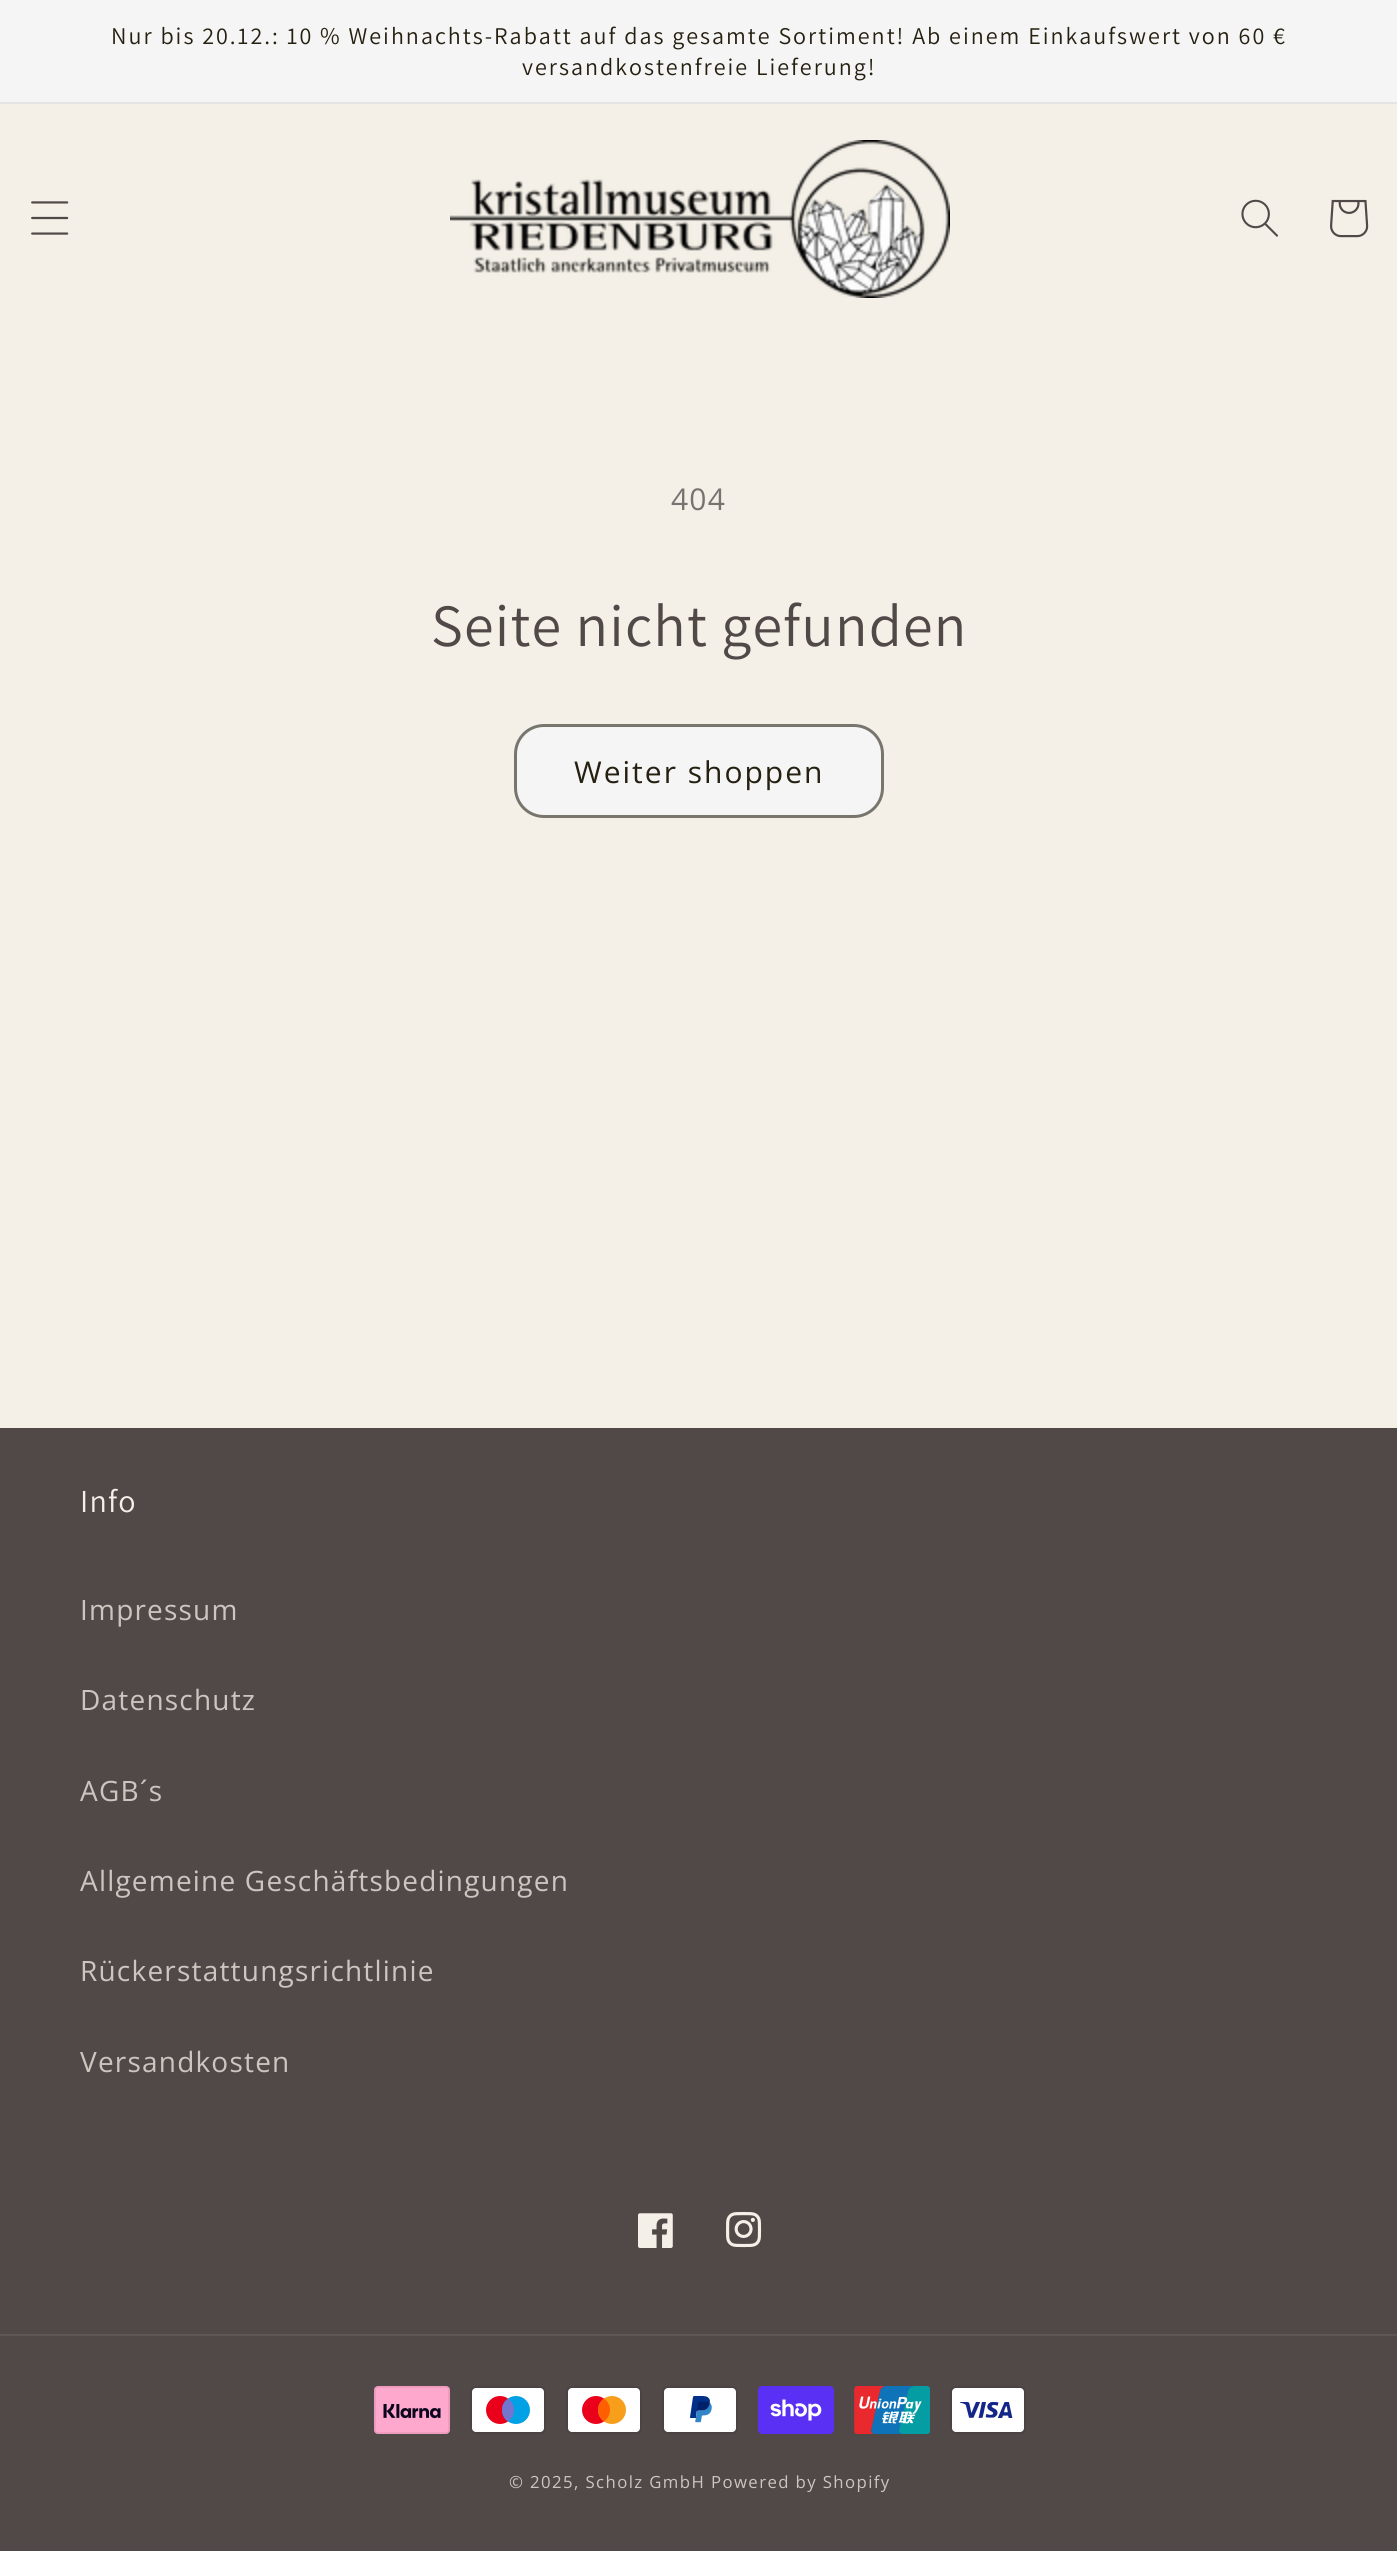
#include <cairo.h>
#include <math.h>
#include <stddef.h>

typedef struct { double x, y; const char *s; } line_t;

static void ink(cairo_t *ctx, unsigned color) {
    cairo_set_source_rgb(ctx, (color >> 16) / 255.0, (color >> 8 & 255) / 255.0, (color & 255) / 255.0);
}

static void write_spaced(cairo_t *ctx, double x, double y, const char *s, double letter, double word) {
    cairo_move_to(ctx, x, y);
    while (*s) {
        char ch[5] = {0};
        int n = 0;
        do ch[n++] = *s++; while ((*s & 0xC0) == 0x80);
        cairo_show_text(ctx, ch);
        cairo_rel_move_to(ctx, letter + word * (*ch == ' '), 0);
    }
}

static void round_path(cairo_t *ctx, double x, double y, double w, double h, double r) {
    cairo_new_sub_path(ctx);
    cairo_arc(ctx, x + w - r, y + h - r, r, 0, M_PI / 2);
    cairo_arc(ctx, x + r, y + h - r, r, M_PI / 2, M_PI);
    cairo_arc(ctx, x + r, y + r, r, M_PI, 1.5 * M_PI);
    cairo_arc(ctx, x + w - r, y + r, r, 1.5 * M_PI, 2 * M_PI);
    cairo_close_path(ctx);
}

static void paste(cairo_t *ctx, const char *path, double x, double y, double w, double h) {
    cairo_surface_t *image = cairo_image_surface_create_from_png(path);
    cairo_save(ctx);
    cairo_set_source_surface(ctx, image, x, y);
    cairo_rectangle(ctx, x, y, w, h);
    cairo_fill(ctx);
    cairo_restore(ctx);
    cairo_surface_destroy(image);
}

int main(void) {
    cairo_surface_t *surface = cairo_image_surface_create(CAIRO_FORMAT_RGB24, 1397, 2551);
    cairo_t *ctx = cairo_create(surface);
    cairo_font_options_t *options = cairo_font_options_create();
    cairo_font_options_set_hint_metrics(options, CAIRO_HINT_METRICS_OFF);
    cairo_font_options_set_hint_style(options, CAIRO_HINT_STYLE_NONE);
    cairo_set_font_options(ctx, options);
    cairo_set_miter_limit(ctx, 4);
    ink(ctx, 0xF4F0E7);
    cairo_paint(ctx);
    ink(ctx, 0xF5F5F5);
    cairo_rectangle(ctx, 0, 0, 1397, 102);
    cairo_fill(ctx);
    ink(ctx, 0xE4E4E3);
    cairo_rectangle(ctx, 0, 102, 1397, 2);
    cairo_fill(ctx);
    cairo_select_font_face(ctx, "Assistant", CAIRO_FONT_SLANT_NORMAL, CAIRO_FONT_WEIGHT_NORMAL);
    cairo_set_font_size(ctx, 24);
    ink(ctx, 0x262011);
    write_spaced(ctx, 111, 44, "Nur bis 20.12.: 10 % Weihnachts-Rabatt auf das gesamte Sortiment! Ab einem Einkaufswert von 60 €", 2, 0);
    write_spaced(ctx, 522, 75, "versandkostenfreie Lieferung!", 2, 0);
    paste(ctx, "media/1.png", 31, 201, 38, 34);
    paste(ctx, "media/2.png", 450, 140, 500, 158);
    paste(ctx, "media/3.png", 1241, 199, 37, 38);
    paste(ctx, "media/4.png", 1330, 199, 39, 39);
    cairo_select_font_face(ctx, "Open Sans", CAIRO_FONT_SLANT_NORMAL, CAIRO_FONT_WEIGHT_NORMAL);
    cairo_set_font_size(ctx, 30);
    ink(ctx, 0x7A7270);
    write_spaced(ctx, 671, 510, "404", 1.2, 0);
    cairo_select_font_face(ctx, "Assistant", CAIRO_FONT_SLANT_NORMAL, CAIRO_FONT_WEIGHT_NORMAL);
    cairo_set_font_size(ctx, 60);
    ink(ctx, 0x514848);
    write_spaced(ctx, 431, 646, "Seite nicht gefunden", 1.2, 0);
    ink(ctx, 0xF5F5F5);
    round_path(ctx, 514, 724, 370, 94, 30);
    cairo_fill(ctx);
    round_path(ctx, 515, 725, 368, 92, 29);
    cairo_stroke(ctx);
    round_path(ctx, 515.5, 725.5, 367, 91, 28.5);
    cairo_set_source_rgba(ctx, 0.149, 0.125, 0.067, 0.6);
    cairo_set_line_width(ctx, 3);
    cairo_stroke(ctx);
    cairo_select_font_face(ctx, "Open Sans", CAIRO_FONT_SLANT_NORMAL, CAIRO_FONT_WEIGHT_NORMAL);
    cairo_set_font_size(ctx, 30);
    ink(ctx, 0x262011);
    write_spaced(ctx, 574, 783, "Weiter shoppen", 2, 0);
    ink(ctx, 0x514848);
    cairo_rectangle(ctx, 0, 1428, 1397, 1123);
    cairo_fill(ctx);
    cairo_select_font_face(ctx, "Assistant", CAIRO_FONT_SLANT_NORMAL, CAIRO_FONT_WEIGHT_NORMAL);
    cairo_set_font_size(ctx, 32);
    ink(ctx, 0xF4F0E7);
    write_spaced(ctx, 80, 1512, "Info", 1.2, 0);
    cairo_select_font_face(ctx, "Open Sans", CAIRO_FONT_SLANT_NORMAL, CAIRO_FONT_WEIGHT_NORMAL);
    cairo_set_font_size(ctx, 28);
    ink(ctx, 0xCBC6BF);
    {
        static const line_t items[] = {
            {80, 1620, "Impressum"},
            {80, 1710, "Datenschutz"},
            {80, 1801, "AGB´s"},
            {80, 1891, "Allgemeine Geschäftsbedingungen"},
            {80, 1981, "Rückerstattungsrichtlinie"},
            {80, 2072, "Versandkosten"},
        };
        for (size_t i = 0; i < sizeof items / sizeof *items; i++) {
            write_spaced(ctx, items[i].x, items[i].y, items[i].s, 1.2, 0);
        }
    }
    paste(ctx, "media/5.png", 638, 2213, 35, 35);
    paste(ctx, "media/6.png", 726, 2212, 36, 36);
    ink(ctx, 0x5E5555);
    cairo_rectangle(ctx, 0, 2334, 1397, 2);
    cairo_fill(ctx);
    paste(ctx, "media/7.png", 374, 2386, 76, 48);
    paste(ctx, "media/8.png", 470, 2386, 76, 48);
    paste(ctx, "media/9.png", 566, 2386, 76, 48);
    paste(ctx, "media/10.png", 662, 2386, 76, 48);
    paste(ctx, "media/11.png", 758, 2386, 76, 48);
    paste(ctx, "media/12.png", 854, 2386, 76, 48);
    paste(ctx, "media/13.png", 950, 2386, 76, 48);
    cairo_set_font_size(ctx, 16.75);
    ink(ctx, 0xCBC6BF);
    write_spaced(ctx, 509, 2488, "© 2025, Scholz GmbH", 1.4, 0);
    write_spaced(ctx, 711, 2488, "Powered by Shopify", 1.4, 0);
    cairo_surface_write_to_png(surface, "image.png");
    cairo_font_options_destroy(options);
    cairo_destroy(ctx);
    cairo_surface_destroy(surface);
    return 0;
}
